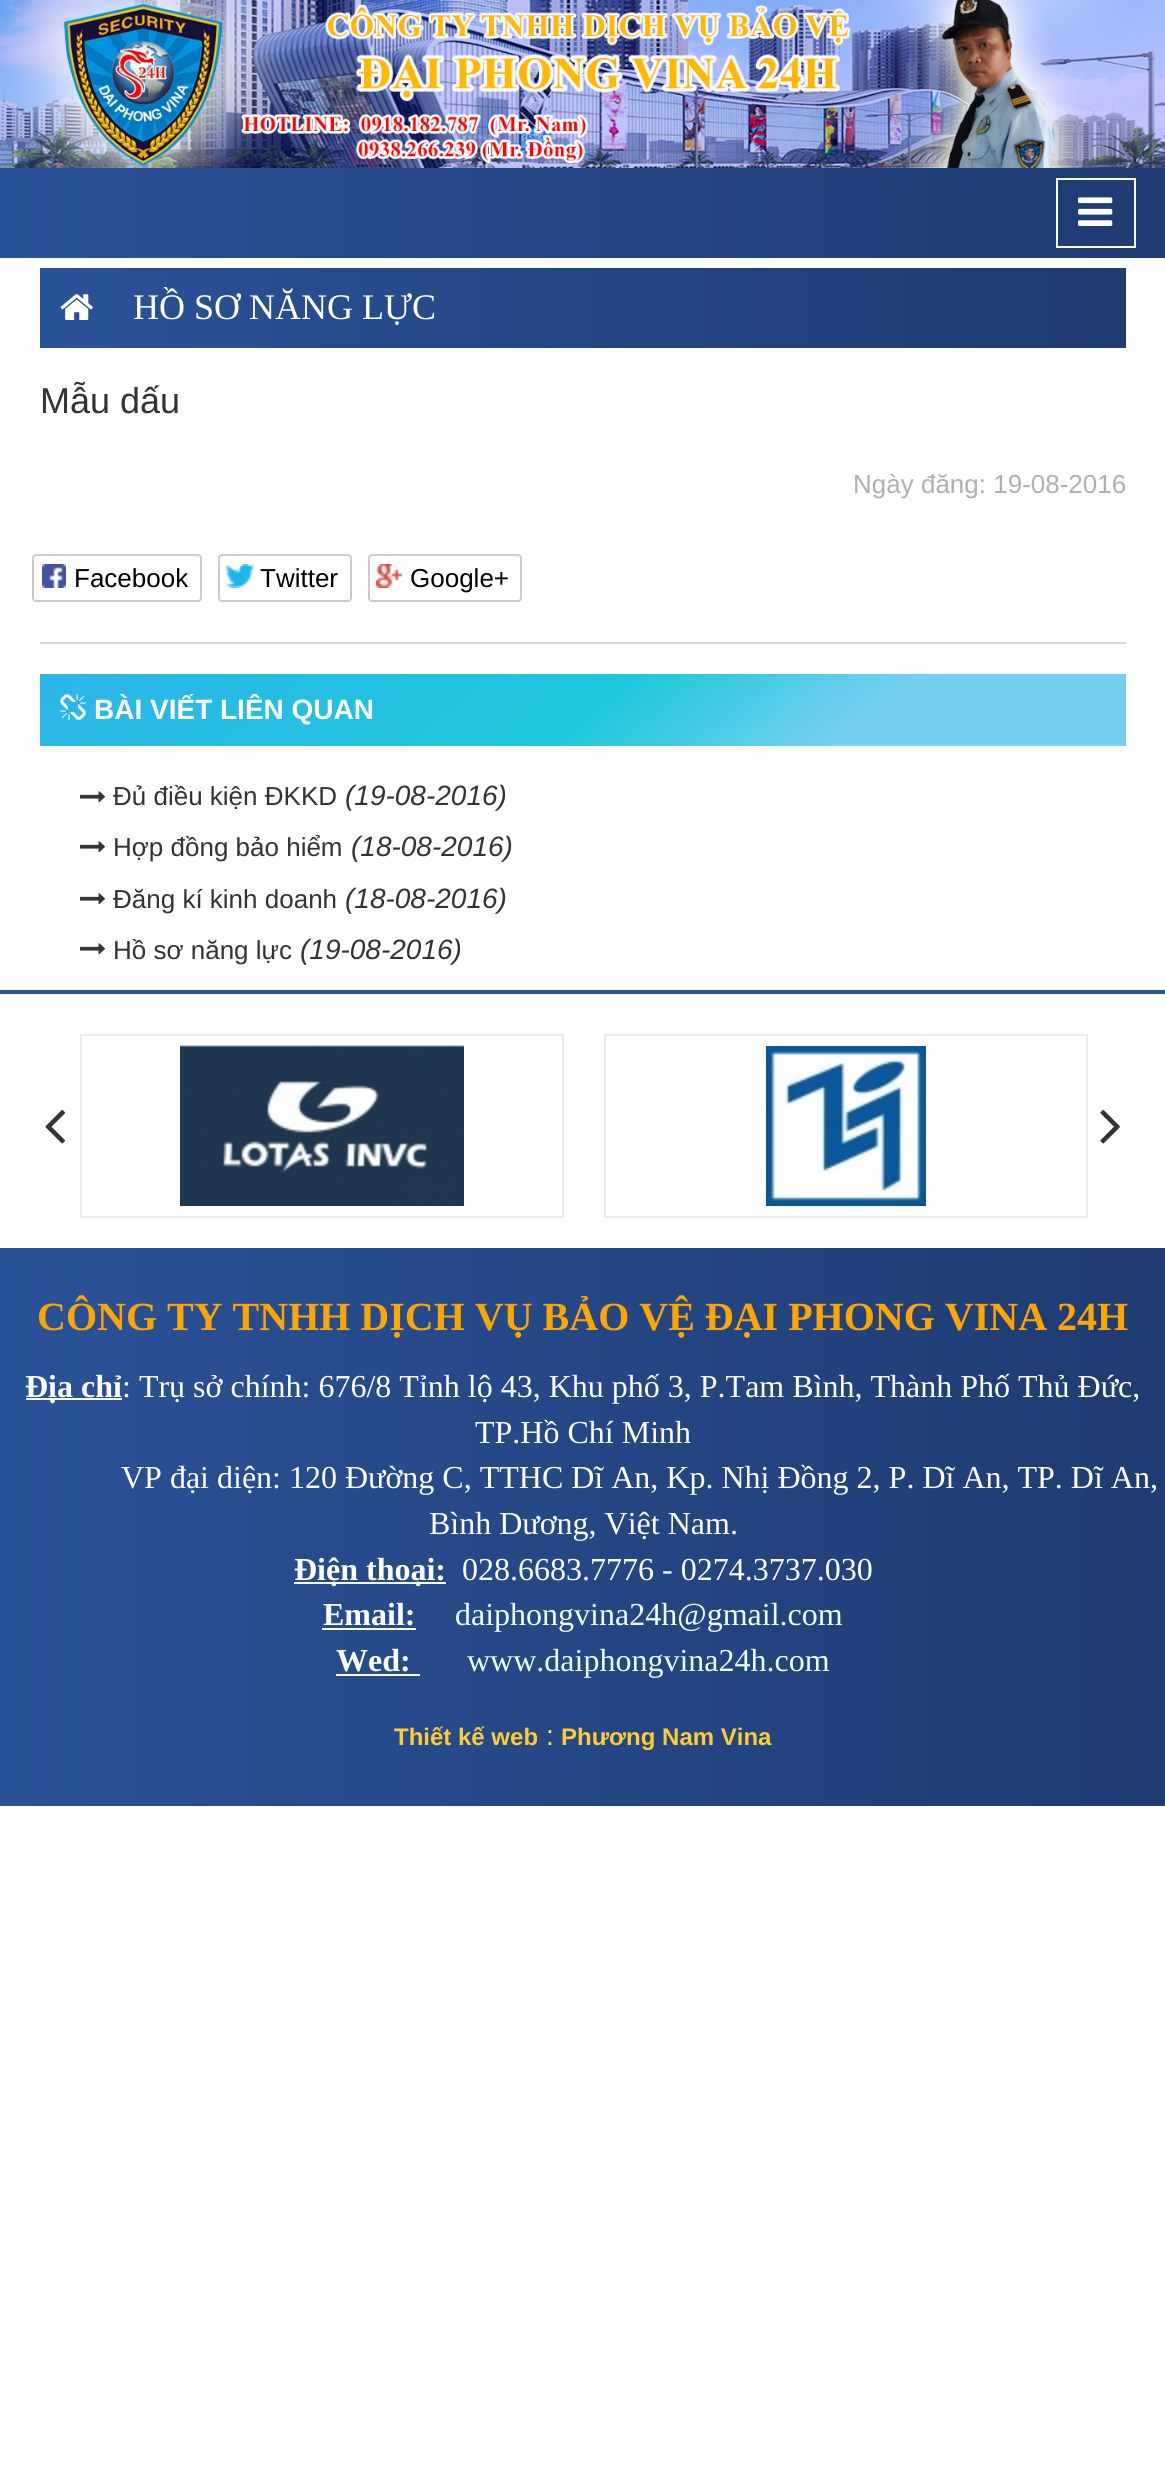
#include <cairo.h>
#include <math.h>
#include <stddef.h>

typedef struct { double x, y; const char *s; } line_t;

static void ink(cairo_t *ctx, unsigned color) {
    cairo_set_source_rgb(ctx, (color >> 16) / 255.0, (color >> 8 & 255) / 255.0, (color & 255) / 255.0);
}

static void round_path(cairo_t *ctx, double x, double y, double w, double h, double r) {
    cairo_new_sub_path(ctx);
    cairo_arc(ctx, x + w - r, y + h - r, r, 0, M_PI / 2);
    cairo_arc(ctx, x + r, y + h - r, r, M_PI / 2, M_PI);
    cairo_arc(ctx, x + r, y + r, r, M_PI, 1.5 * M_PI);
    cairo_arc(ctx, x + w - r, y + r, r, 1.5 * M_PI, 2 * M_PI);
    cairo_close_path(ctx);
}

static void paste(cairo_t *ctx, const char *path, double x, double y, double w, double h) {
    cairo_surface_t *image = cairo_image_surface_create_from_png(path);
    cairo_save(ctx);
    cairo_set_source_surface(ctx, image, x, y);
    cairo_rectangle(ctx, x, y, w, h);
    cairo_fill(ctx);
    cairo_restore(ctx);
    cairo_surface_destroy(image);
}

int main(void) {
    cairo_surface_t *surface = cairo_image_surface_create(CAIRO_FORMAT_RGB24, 1165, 2475);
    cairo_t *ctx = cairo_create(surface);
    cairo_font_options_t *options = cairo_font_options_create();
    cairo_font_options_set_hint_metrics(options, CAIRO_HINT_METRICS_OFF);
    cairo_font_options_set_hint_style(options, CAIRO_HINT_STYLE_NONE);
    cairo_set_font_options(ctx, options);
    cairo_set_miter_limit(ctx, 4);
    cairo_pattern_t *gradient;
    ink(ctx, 0xFFFFFF);
    cairo_paint(ctx);
    paste(ctx, "media/1.png", 0, 0, 1165, 168);
    gradient = cairo_pattern_create_linear(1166, 213, 0, 213);
    cairo_pattern_add_color_stop_rgba(gradient, 0, 0.118, 0.235, 0.447, 1);
    cairo_pattern_add_color_stop_rgba(gradient, 1, 0.165, 0.322, 0.596, 1);
    cairo_set_source(ctx, gradient);
    cairo_pattern_destroy(gradient);
    cairo_rectangle(ctx, 0, 168, 1165, 90);
    cairo_fill(ctx);
    cairo_rectangle(ctx, 1057, 179, 78, 68);
    ink(ctx, 0xFFFFFF);
    cairo_stroke(ctx);
    paste(ctx, "media/2.png", 1078, 197, 35, 29);
    gradient = cairo_pattern_create_linear(1126, 308, 40, 308);
    cairo_pattern_add_color_stop_rgba(gradient, 0, 0.118, 0.235, 0.447, 1);
    cairo_pattern_add_color_stop_rgba(gradient, 1, 0.165, 0.322, 0.596, 1);
    cairo_set_source(ctx, gradient);
    cairo_pattern_destroy(gradient);
    cairo_rectangle(ctx, 40, 268, 1086, 80);
    cairo_fill(ctx);
    paste(ctx, "media/3.png", 60, 294, 33, 26);
    cairo_select_font_face(ctx, "Liberation Serif", CAIRO_FONT_SLANT_NORMAL, CAIRO_FONT_WEIGHT_NORMAL);
    cairo_set_font_size(ctx, 36);
    ink(ctx, 0xFFFFFF);
    cairo_move_to(ctx, 133, 319);
    cairo_show_text(ctx, "HỒ SƠ NĂNG LỰC");
    cairo_select_font_face(ctx, "Liberation Sans", CAIRO_FONT_SLANT_NORMAL, CAIRO_FONT_WEIGHT_NORMAL);
    ink(ctx, 0x333333);
    cairo_move_to(ctx, 40, 413);
    cairo_show_text(ctx, "Mẫu dấu");
    cairo_set_font_size(ctx, 26);
    ink(ctx, 0xB1AFAF);
    cairo_move_to(ctx, 853, 493);
    cairo_show_text(ctx, "Ngày đăng: 19-08-2016");
    round_path(ctx, 33, 555, 168, 46, 3);
    ink(ctx, 0xCCCCCC);
    cairo_stroke(ctx);
    paste(ctx, "media/4.png", 42, 564, 24, 24);
    ink(ctx, 0x000000);
    cairo_move_to(ctx, 74, 587);
    cairo_show_text(ctx, "Facebook");
    round_path(ctx, 219, 555, 132, 46, 3);
    ink(ctx, 0xCCCCCC);
    cairo_stroke(ctx);
    paste(ctx, "media/5.png", 226, 564, 28, 24);
    ink(ctx, 0x000000);
    cairo_move_to(ctx, 260, 587);
    cairo_show_text(ctx, "Twitter");
    round_path(ctx, 369, 555, 152, 46, 3);
    ink(ctx, 0xCCCCCC);
    cairo_stroke(ctx);
    paste(ctx, "media/6.png", 376, 564, 26, 24);
    ink(ctx, 0x000000);
    cairo_move_to(ctx, 410, 587);
    cairo_show_text(ctx, "Google+");
    ink(ctx, 0xD8D7D7);
    cairo_rectangle(ctx, 40, 642, 1086, 2);
    cairo_fill(ctx);
    gradient = cairo_pattern_create_linear(350, 423, 816, 997);
    cairo_pattern_add_color_stop_rgba(gradient, 0, 0.173, 0.71, 0.91, 1);
    cairo_pattern_add_color_stop_rgba(gradient, 0.51, 0.122, 0.784, 0.859, 1);
    cairo_pattern_add_color_stop_rgba(gradient, 0.75, 0.459, 0.812, 0.941, 1);
    cairo_set_source(ctx, gradient);
    cairo_pattern_destroy(gradient);
    cairo_rectangle(ctx, 40, 674, 1086, 72);
    cairo_fill(ctx);
    paste(ctx, "media/7.png", 60, 694, 26, 26);
    cairo_select_font_face(ctx, "Liberation Sans", CAIRO_FONT_SLANT_NORMAL, CAIRO_FONT_WEIGHT_BOLD);
    cairo_set_font_size(ctx, 28);
    ink(ctx, 0xFFFFFF);
    cairo_move_to(ctx, 94, 719);
    cairo_show_text(ctx, "BÀI VIẾT LIÊN QUAN");
    paste(ctx, "media/8.png", 80, 791, 25, 12);
    cairo_select_font_face(ctx, "Liberation Sans", CAIRO_FONT_SLANT_NORMAL, CAIRO_FONT_WEIGHT_NORMAL);
    cairo_set_font_size(ctx, 26);
    ink(ctx, 0x333333);
    cairo_move_to(ctx, 113, 805);
    cairo_show_text(ctx, "Đủ điều kiện ĐKKD");
    cairo_select_font_face(ctx, "Liberation Sans", CAIRO_FONT_SLANT_ITALIC, CAIRO_FONT_WEIGHT_NORMAL);
    cairo_set_font_size(ctx, 28);
    cairo_move_to(ctx, 345, 805);
    cairo_show_text(ctx, "(19-08-2016)");
    paste(ctx, "media/8.png", 80, 841, 25, 12);
    cairo_select_font_face(ctx, "Liberation Sans", CAIRO_FONT_SLANT_NORMAL, CAIRO_FONT_WEIGHT_NORMAL);
    cairo_set_font_size(ctx, 26);
    cairo_move_to(ctx, 113, 856);
    cairo_show_text(ctx, "Hợp đồng bảo hiểm");
    cairo_select_font_face(ctx, "Liberation Sans", CAIRO_FONT_SLANT_ITALIC, CAIRO_FONT_WEIGHT_NORMAL);
    cairo_set_font_size(ctx, 28);
    cairo_move_to(ctx, 351, 856);
    cairo_show_text(ctx, "(18-08-2016)");
    paste(ctx, "media/8.png", 80, 893, 25, 12);
    cairo_select_font_face(ctx, "Liberation Sans", CAIRO_FONT_SLANT_NORMAL, CAIRO_FONT_WEIGHT_NORMAL);
    cairo_set_font_size(ctx, 26);
    cairo_move_to(ctx, 113, 908);
    cairo_show_text(ctx, "Đăng kí kinh doanh");
    cairo_select_font_face(ctx, "Liberation Sans", CAIRO_FONT_SLANT_ITALIC, CAIRO_FONT_WEIGHT_NORMAL);
    cairo_set_font_size(ctx, 28);
    cairo_move_to(ctx, 345, 908);
    cairo_show_text(ctx, "(18-08-2016)");
    paste(ctx, "media/8.png", 80, 943, 25, 12);
    cairo_select_font_face(ctx, "Liberation Sans", CAIRO_FONT_SLANT_NORMAL, CAIRO_FONT_WEIGHT_NORMAL);
    cairo_set_font_size(ctx, 26);
    cairo_move_to(ctx, 113, 959);
    cairo_show_text(ctx, "Hồ sơ năng lực");
    cairo_select_font_face(ctx, "Liberation Sans", CAIRO_FONT_SLANT_ITALIC, CAIRO_FONT_WEIGHT_NORMAL);
    cairo_set_font_size(ctx, 28);
    cairo_move_to(ctx, 300, 959);
    cairo_show_text(ctx, "(19-08-2016)");
    ink(ctx, 0x2A5298);
    cairo_rectangle(ctx, 0, 990, 1165, 4);
    cairo_fill(ctx);
    cairo_rectangle(ctx, 81, 1035, 482, 182);
    ink(ctx, 0xEBEBEB);
    cairo_stroke(ctx);
    paste(ctx, "media/9.png", 180, 1045, 284, 161);
    cairo_rectangle(ctx, 605, 1035, 482, 182);
    cairo_stroke(ctx);
    paste(ctx, "media/10.png", 766, 1046, 160, 160);
    paste(ctx, "media/11.png", 45, 1110, 20, 34);
    paste(ctx, "media/12.png", 1100, 1110, 20, 34);
    gradient = cairo_pattern_create_linear(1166, 1527, 0, 1527);
    cairo_pattern_add_color_stop_rgba(gradient, 0, 0.118, 0.235, 0.447, 1);
    cairo_pattern_add_color_stop_rgba(gradient, 1, 0.165, 0.322, 0.596, 1);
    cairo_set_source(ctx, gradient);
    cairo_pattern_destroy(gradient);
    cairo_rectangle(ctx, 0, 1248, 1165, 558);
    cairo_fill(ctx);
    cairo_select_font_face(ctx, "Liberation Serif", CAIRO_FONT_SLANT_NORMAL, CAIRO_FONT_WEIGHT_BOLD);
    cairo_set_font_size(ctx, 40);
    ink(ctx, 0xFFA500);
    cairo_move_to(ctx, 37, 1330);
    cairo_show_text(ctx, "CÔNG TY TNHH DỊCH VỤ BẢO VỆ ĐẠI PHONG VINA 24H");
    ink(ctx, 0xFFFFFF);
    cairo_rectangle(ctx, 26, 1398, 96, 2);
    cairo_fill(ctx);
    cairo_set_font_size(ctx, 32);
    cairo_move_to(ctx, 25, 1397);
    cairo_show_text(ctx, "Địa chỉ");
    cairo_select_font_face(ctx, "Liberation Serif", CAIRO_FONT_SLANT_NORMAL, CAIRO_FONT_WEIGHT_NORMAL);
    {
        static const line_t items[] = {
            {122, 1397, ": Trụ sở chính: 676/8 Tỉnh lộ 43, Khu phố 3, P.Tam Bình, Thành Phố Thủ Đức,"},
            {475, 1443, "TP.Hồ Chí Minh"},
            {121, 1488, "VP đại diện: 120 Đường C, TTHC Dĩ An, Kp. Nhị Đồng 2, P. Dĩ An, TP. Dĩ An,"},
            {429, 1534, "Bình Dương, Việt Nam."},
        };
        for (size_t i = 0; i < sizeof items / sizeof *items; i++) {
            cairo_move_to(ctx, items[i].x, items[i].y);
            cairo_show_text(ctx, items[i].s);
        }
    }
    cairo_rectangle(ctx, 294, 1582, 152, 2);
    cairo_fill(ctx);
    cairo_select_font_face(ctx, "Liberation Serif", CAIRO_FONT_SLANT_NORMAL, CAIRO_FONT_WEIGHT_BOLD);
    cairo_move_to(ctx, 294, 1580);
    cairo_show_text(ctx, "Điện thoại:");
    cairo_select_font_face(ctx, "Liberation Serif", CAIRO_FONT_SLANT_NORMAL, CAIRO_FONT_WEIGHT_NORMAL);
    cairo_move_to(ctx, 462, 1580);
    cairo_show_text(ctx, "028.6683.7776 - 0274.3737.030");
    cairo_select_font_face(ctx, "Liberation Serif", CAIRO_FONT_SLANT_NORMAL, CAIRO_FONT_WEIGHT_BOLD);
    cairo_move_to(ctx, 323, 1625);
    cairo_show_text(ctx, "Email:");
    cairo_rectangle(ctx, 322, 1628, 94, 2);
    cairo_fill(ctx);
    cairo_select_font_face(ctx, "Liberation Serif", CAIRO_FONT_SLANT_NORMAL, CAIRO_FONT_WEIGHT_NORMAL);
    ink(ctx, 0xF0FFFF);
    cairo_move_to(ctx, 455, 1625);
    cairo_show_text(ctx, "daiphongvina24h@gmail.com");
    cairo_select_font_face(ctx, "Liberation Serif", CAIRO_FONT_SLANT_NORMAL, CAIRO_FONT_WEIGHT_BOLD);
    ink(ctx, 0xFFFFFF);
    cairo_move_to(ctx, 336, 1671);
    cairo_show_text(ctx, "Wed:");
    cairo_rectangle(ctx, 336, 1674, 84, 2);
    cairo_fill(ctx);
    cairo_select_font_face(ctx, "Liberation Serif", CAIRO_FONT_SLANT_NORMAL, CAIRO_FONT_WEIGHT_NORMAL);
    ink(ctx, 0xF0FFFF);
    cairo_move_to(ctx, 467, 1671);
    cairo_show_text(ctx, "www.daiphongvina24h.com");
    cairo_select_font_face(ctx, "Liberation Sans", CAIRO_FONT_SLANT_NORMAL, CAIRO_FONT_WEIGHT_BOLD);
    cairo_set_font_size(ctx, 24);
    ink(ctx, 0xFFCC33);
    cairo_move_to(ctx, 394, 1745);
    cairo_show_text(ctx, "Thiết kế web");
    cairo_select_font_face(ctx, "Liberation Sans", CAIRO_FONT_SLANT_NORMAL, CAIRO_FONT_WEIGHT_NORMAL);
    cairo_set_font_size(ctx, 28);
    ink(ctx, 0xFFFF00);
    cairo_move_to(ctx, 546, 1745);
    cairo_show_text(ctx, ":");
    cairo_select_font_face(ctx, "Liberation Sans", CAIRO_FONT_SLANT_NORMAL, CAIRO_FONT_WEIGHT_BOLD);
    cairo_set_font_size(ctx, 24);
    ink(ctx, 0xFFCC33);
    cairo_move_to(ctx, 561, 1745);
    cairo_show_text(ctx, "Phương Nam Vina");
    cairo_surface_write_to_png(surface, "image.png");
    cairo_font_options_destroy(options);
    cairo_destroy(ctx);
    cairo_surface_destroy(surface);
    return 0;
}
